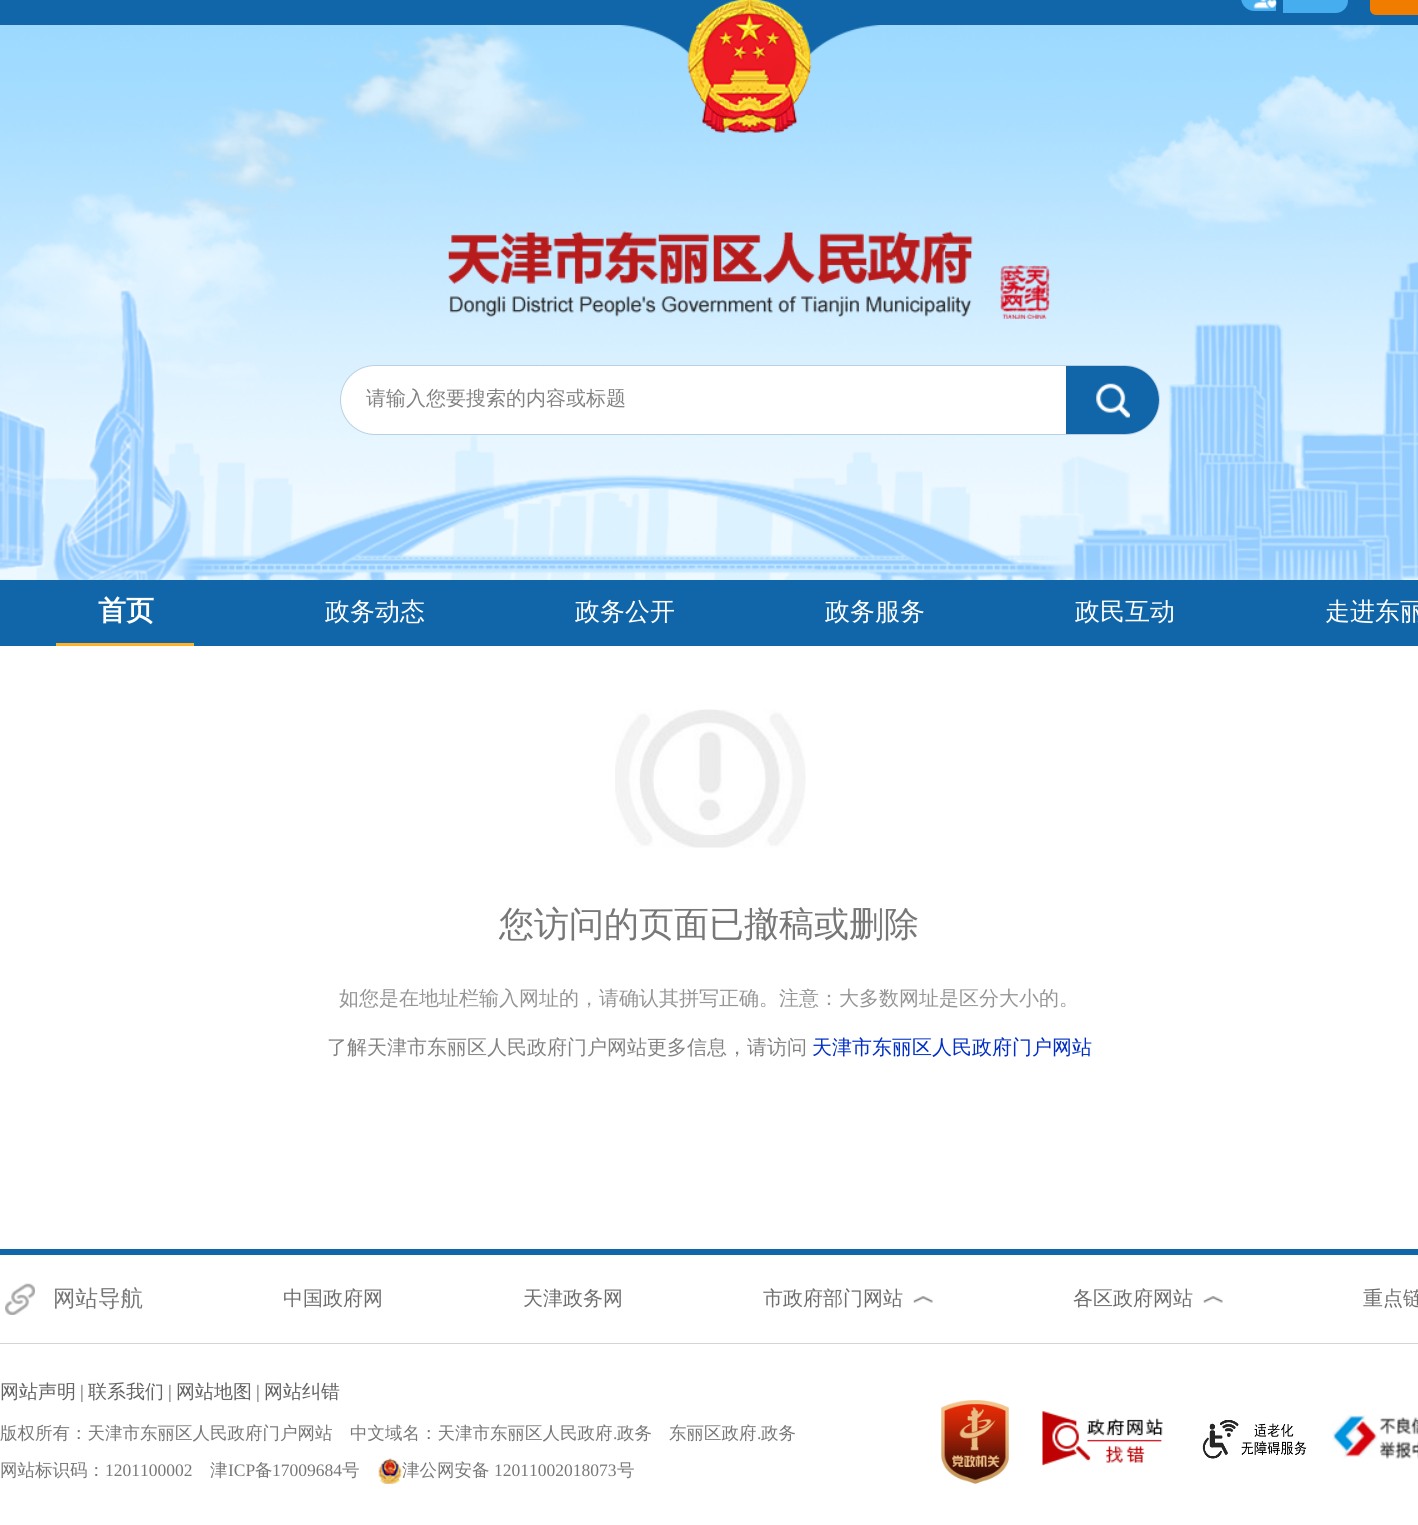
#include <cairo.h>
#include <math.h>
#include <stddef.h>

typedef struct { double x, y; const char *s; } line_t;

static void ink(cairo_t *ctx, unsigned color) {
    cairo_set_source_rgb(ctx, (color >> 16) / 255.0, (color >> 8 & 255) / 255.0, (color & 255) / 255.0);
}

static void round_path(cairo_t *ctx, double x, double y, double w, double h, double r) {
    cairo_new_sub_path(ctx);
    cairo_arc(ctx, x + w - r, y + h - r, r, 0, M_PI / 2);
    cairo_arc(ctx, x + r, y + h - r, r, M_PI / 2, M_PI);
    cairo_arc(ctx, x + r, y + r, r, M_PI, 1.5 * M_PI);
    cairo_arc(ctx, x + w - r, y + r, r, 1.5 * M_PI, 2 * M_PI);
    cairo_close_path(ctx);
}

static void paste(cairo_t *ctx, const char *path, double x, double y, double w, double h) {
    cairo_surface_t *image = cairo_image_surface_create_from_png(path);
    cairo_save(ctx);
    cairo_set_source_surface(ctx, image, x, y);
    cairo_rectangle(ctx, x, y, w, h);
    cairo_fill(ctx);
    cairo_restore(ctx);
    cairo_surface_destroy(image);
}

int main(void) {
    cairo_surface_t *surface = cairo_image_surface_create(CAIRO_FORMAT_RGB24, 1418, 1525);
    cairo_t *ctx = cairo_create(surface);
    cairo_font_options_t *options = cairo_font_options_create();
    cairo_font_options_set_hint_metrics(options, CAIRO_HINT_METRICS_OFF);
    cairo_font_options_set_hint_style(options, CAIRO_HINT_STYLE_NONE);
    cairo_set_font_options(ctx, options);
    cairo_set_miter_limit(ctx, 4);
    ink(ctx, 0xFFFFFF);
    cairo_paint(ctx);
    ink(ctx, 0x1066A9);
    cairo_rectangle(ctx, 0, 0, 1418, 25);
    cairo_fill(ctx);
    ink(ctx, 0x46AEEE);
    cairo_new_path(ctx);
    cairo_move_to(ctx, 1254.5, -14);
    cairo_line_to(ctx, 1276, -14);
    cairo_line_to(ctx, 1276, 11);
    cairo_line_to(ctx, 1254.5, 11);
    cairo_curve_to(ctx, 1247, 11, 1241, 5, 1241, -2.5);
    cairo_line_to(ctx, 1241, -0.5);
    cairo_curve_to(ctx, 1241, -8, 1247, -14, 1254.5, -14);
    cairo_close_path(ctx);
    cairo_fill(ctx);
    cairo_new_path(ctx);
    cairo_move_to(ctx, 1283, -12);
    cairo_line_to(ctx, 1335.5, -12);
    cairo_curve_to(ctx, 1342.5, -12, 1348, -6.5, 1348, 0.5);
    cairo_curve_to(ctx, 1348, 7.5, 1342.5, 13, 1335.5, 13);
    cairo_line_to(ctx, 1283, 13);
    cairo_close_path(ctx);
    cairo_fill(ctx);
    ink(ctx, 0xF17D00);
    round_path(ctx, 1370, -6, 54, 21, 6);
    cairo_fill(ctx);
    paste(ctx, "media/1.png", 1253, 0, 24, 9);
    paste(ctx, "media/2.png", 0, 25, 1418, 555);
    paste(ctx, "media/3.png", 619, 25, 262, 31);
    paste(ctx, "media/4.png", 687, 0, 125, 133);
    paste(ctx, "media/5.png", 448, 231, 525, 86);
    paste(ctx, "media/6.png", 1000, 265, 51, 54);
    ink(ctx, 0xFFFFFF);
    round_path(ctx, 340.5, 365.5, 819, 69, 34.5);
    cairo_fill_preserve(ctx);
    ink(ctx, 0xB8D0E4);
    cairo_set_line_width(ctx, 1);
    cairo_stroke(ctx);
    cairo_select_font_face(ctx, "WenQuanYi Zen Hei Medium", CAIRO_FONT_SLANT_NORMAL, CAIRO_FONT_WEIGHT_NORMAL);
    cairo_set_font_size(ctx, 20);
    ink(ctx, 0x828282);
    cairo_move_to(ctx, 366, 405);
    cairo_show_text(ctx, "请输入您要搜索的内容或标题");
    ink(ctx, 0x1066A9);
    cairo_new_path(ctx);
    cairo_move_to(ctx, 1066, 366);
    cairo_line_to(ctx, 1125, 366);
    cairo_curve_to(ctx, 1144, 366, 1159, 381, 1159, 400);
    cairo_curve_to(ctx, 1159, 419, 1144, 434, 1125, 434);
    cairo_line_to(ctx, 1066, 434);
    cairo_close_path(ctx);
    cairo_fill(ctx);
    paste(ctx, "media/7.png", 1096, 383, 34, 35);
    cairo_rectangle(ctx, 0, 580, 1418, 66);
    cairo_fill(ctx);
    ink(ctx, 0xFFB225);
    cairo_rectangle(ctx, 56, 643, 138, 3);
    cairo_fill(ctx);
    cairo_select_font_face(ctx, "WenQuanYi Zen Hei", CAIRO_FONT_SLANT_NORMAL, CAIRO_FONT_WEIGHT_BOLD);
    cairo_set_font_size(ctx, 28);
    ink(ctx, 0xFFFFFF);
    cairo_move_to(ctx, 98, 620);
    cairo_show_text(ctx, "首页");
    cairo_select_font_face(ctx, "WenQuanYi Zen Hei Medium", CAIRO_FONT_SLANT_NORMAL, CAIRO_FONT_WEIGHT_NORMAL);
    cairo_set_font_size(ctx, 25);
    {
        static const line_t items[] = {
            {325, 620, "政务动态"},
            {575, 620, "政务公开"},
            {825, 620, "政务服务"},
            {1075, 620, "政民互动"},
            {1325, 620, "走进东丽"},
        };
        for (size_t i = 0; i < sizeof items / sizeof *items; i++) {
            cairo_move_to(ctx, items[i].x, items[i].y);
            cairo_show_text(ctx, items[i].s);
        }
    }
    paste(ctx, "media/8.png", 615, 709, 191, 139);
    cairo_set_font_size(ctx, 35);
    ink(ctx, 0x777777);
    cairo_move_to(ctx, 499, 936);
    cairo_show_text(ctx, "您访问的页面已撤稿或删除");
    cairo_set_font_size(ctx, 20);
    ink(ctx, 0x959595);
    cairo_move_to(ctx, 339, 1005);
    cairo_show_text(ctx, "如您是在地址栏输入网址的，请确认其拼写正确。注意：大多数网址是区分大小的。");
    ink(ctx, 0x828282);
    cairo_move_to(ctx, 327, 1054);
    cairo_show_text(ctx, "了解天津市东丽区人民政府门户网站更多信息，请访问");
    ink(ctx, 0x002EC3);
    cairo_move_to(ctx, 812, 1054);
    cairo_show_text(ctx, "天津市东丽区人民政府门户网站");
    ink(ctx, 0x1066A9);
    cairo_rectangle(ctx, 0, 1249, 1418, 6);
    cairo_fill(ctx);
    ink(ctx, 0xD4D4D4);
    cairo_rectangle(ctx, 0, 1343, 1418, 1);
    cairo_fill(ctx);
    paste(ctx, "media/9.png", 5, 1283, 30, 32);
    cairo_set_font_size(ctx, 22.5);
    ink(ctx, 0x777777);
    cairo_move_to(ctx, 53, 1306);
    cairo_show_text(ctx, "网站导航");
    cairo_set_font_size(ctx, 20);
    ink(ctx, 0x6E6E6E);
    cairo_move_to(ctx, 283, 1305);
    cairo_show_text(ctx, "中国政府网");
    cairo_move_to(ctx, 523, 1305);
    cairo_show_text(ctx, "天津政务网");
    paste(ctx, "media/10.png", 913, 1296, 20, 7);
    cairo_move_to(ctx, 763, 1305);
    cairo_show_text(ctx, "市政府部门网站");
    paste(ctx, "media/11.png", 1203, 1296, 20, 7);
    cairo_move_to(ctx, 1073, 1305);
    cairo_show_text(ctx, "各区政府网站");
    cairo_move_to(ctx, 1363, 1305);
    cairo_show_text(ctx, "重点链");
    cairo_set_font_size(ctx, 19);
    ink(ctx, 0x636363);
    cairo_move_to(ctx, 0, 1398);
    cairo_show_text(ctx, "网站声明");
    cairo_select_font_face(ctx, "Liberation Serif", CAIRO_FONT_SLANT_NORMAL, CAIRO_FONT_WEIGHT_NORMAL);
    cairo_move_to(ctx, 80, 1398);
    cairo_show_text(ctx, "|");
    cairo_select_font_face(ctx, "WenQuanYi Zen Hei Medium", CAIRO_FONT_SLANT_NORMAL, CAIRO_FONT_WEIGHT_NORMAL);
    cairo_move_to(ctx, 88, 1398);
    cairo_show_text(ctx, "联系我们");
    cairo_select_font_face(ctx, "Liberation Serif", CAIRO_FONT_SLANT_NORMAL, CAIRO_FONT_WEIGHT_NORMAL);
    cairo_move_to(ctx, 168, 1398);
    cairo_show_text(ctx, "|");
    cairo_select_font_face(ctx, "WenQuanYi Zen Hei Medium", CAIRO_FONT_SLANT_NORMAL, CAIRO_FONT_WEIGHT_NORMAL);
    cairo_move_to(ctx, 176, 1398);
    cairo_show_text(ctx, "网站地图");
    cairo_select_font_face(ctx, "Liberation Serif", CAIRO_FONT_SLANT_NORMAL, CAIRO_FONT_WEIGHT_NORMAL);
    cairo_move_to(ctx, 256, 1398);
    cairo_show_text(ctx, "|");
    cairo_select_font_face(ctx, "WenQuanYi Zen Hei Medium", CAIRO_FONT_SLANT_NORMAL, CAIRO_FONT_WEIGHT_NORMAL);
    cairo_move_to(ctx, 264, 1398);
    cairo_show_text(ctx, "网站纠错");
    cairo_set_font_size(ctx, 17.5);
    ink(ctx, 0x777777);
    cairo_move_to(ctx, 0, 1439);
    cairo_show_text(ctx, "版权所有：天津市东丽区人民政府门户网站");
    cairo_move_to(ctx, 350, 1439);
    cairo_show_text(ctx, "中文域名：天津市东丽区人民政府");
    cairo_select_font_face(ctx, "Liberation Serif", CAIRO_FONT_SLANT_NORMAL, CAIRO_FONT_WEIGHT_NORMAL);
    cairo_move_to(ctx, 613, 1439);
    cairo_show_text(ctx, ".");
    cairo_select_font_face(ctx, "WenQuanYi Zen Hei Medium", CAIRO_FONT_SLANT_NORMAL, CAIRO_FONT_WEIGHT_NORMAL);
    cairo_move_to(ctx, 617, 1439);
    cairo_show_text(ctx, "政务");
    cairo_move_to(ctx, 669, 1439);
    cairo_show_text(ctx, "东丽区政府");
    cairo_select_font_face(ctx, "Liberation Serif", CAIRO_FONT_SLANT_NORMAL, CAIRO_FONT_WEIGHT_NORMAL);
    cairo_move_to(ctx, 757, 1439);
    cairo_show_text(ctx, ".");
    cairo_select_font_face(ctx, "WenQuanYi Zen Hei Medium", CAIRO_FONT_SLANT_NORMAL, CAIRO_FONT_WEIGHT_NORMAL);
    cairo_move_to(ctx, 761, 1439);
    cairo_show_text(ctx, "政务");
    cairo_move_to(ctx, 0, 1476);
    cairo_show_text(ctx, "网站标识码：");
    cairo_select_font_face(ctx, "Liberation Serif", CAIRO_FONT_SLANT_NORMAL, CAIRO_FONT_WEIGHT_NORMAL);
    cairo_move_to(ctx, 105, 1476);
    cairo_show_text(ctx, "1201100002");
    cairo_select_font_face(ctx, "WenQuanYi Zen Hei Medium", CAIRO_FONT_SLANT_NORMAL, CAIRO_FONT_WEIGHT_NORMAL);
    cairo_move_to(ctx, 210, 1476);
    cairo_show_text(ctx, "津");
    cairo_select_font_face(ctx, "Liberation Serif", CAIRO_FONT_SLANT_NORMAL, CAIRO_FONT_WEIGHT_NORMAL);
    cairo_move_to(ctx, 228, 1476);
    cairo_show_text(ctx, "ICP");
    cairo_select_font_face(ctx, "WenQuanYi Zen Hei Medium", CAIRO_FONT_SLANT_NORMAL, CAIRO_FONT_WEIGHT_NORMAL);
    cairo_move_to(ctx, 255, 1476);
    cairo_show_text(ctx, "备");
    cairo_select_font_face(ctx, "Liberation Serif", CAIRO_FONT_SLANT_NORMAL, CAIRO_FONT_WEIGHT_NORMAL);
    cairo_move_to(ctx, 272, 1476);
    cairo_show_text(ctx, "17009684");
    cairo_select_font_face(ctx, "WenQuanYi Zen Hei Medium", CAIRO_FONT_SLANT_NORMAL, CAIRO_FONT_WEIGHT_NORMAL);
    cairo_move_to(ctx, 342, 1476);
    cairo_show_text(ctx, "号");
    paste(ctx, "media/12.png", 378, 1458, 24, 26);
    cairo_move_to(ctx, 402, 1476);
    cairo_show_text(ctx, "津公网安备");
    cairo_select_font_face(ctx, "Liberation Serif", CAIRO_FONT_SLANT_NORMAL, CAIRO_FONT_WEIGHT_NORMAL);
    cairo_move_to(ctx, 494, 1476);
    cairo_show_text(ctx, "12011002018073");
    cairo_select_font_face(ctx, "WenQuanYi Zen Hei Medium", CAIRO_FONT_SLANT_NORMAL, CAIRO_FONT_WEIGHT_NORMAL);
    cairo_move_to(ctx, 617, 1476);
    cairo_show_text(ctx, "号");
    paste(ctx, "media/13.png", 941, 1400, 68, 84);
    paste(ctx, "media/14.png", 1042, 1411, 121, 55);
    paste(ctx, "media/15.png", 1202, 1420, 105, 39);
    paste(ctx, "media/16.png", 1332, 1415, 86, 44);
    cairo_surface_write_to_png(surface, "image.png");
    cairo_font_options_destroy(options);
    cairo_destroy(ctx);
    cairo_surface_destroy(surface);
    return 0;
}
